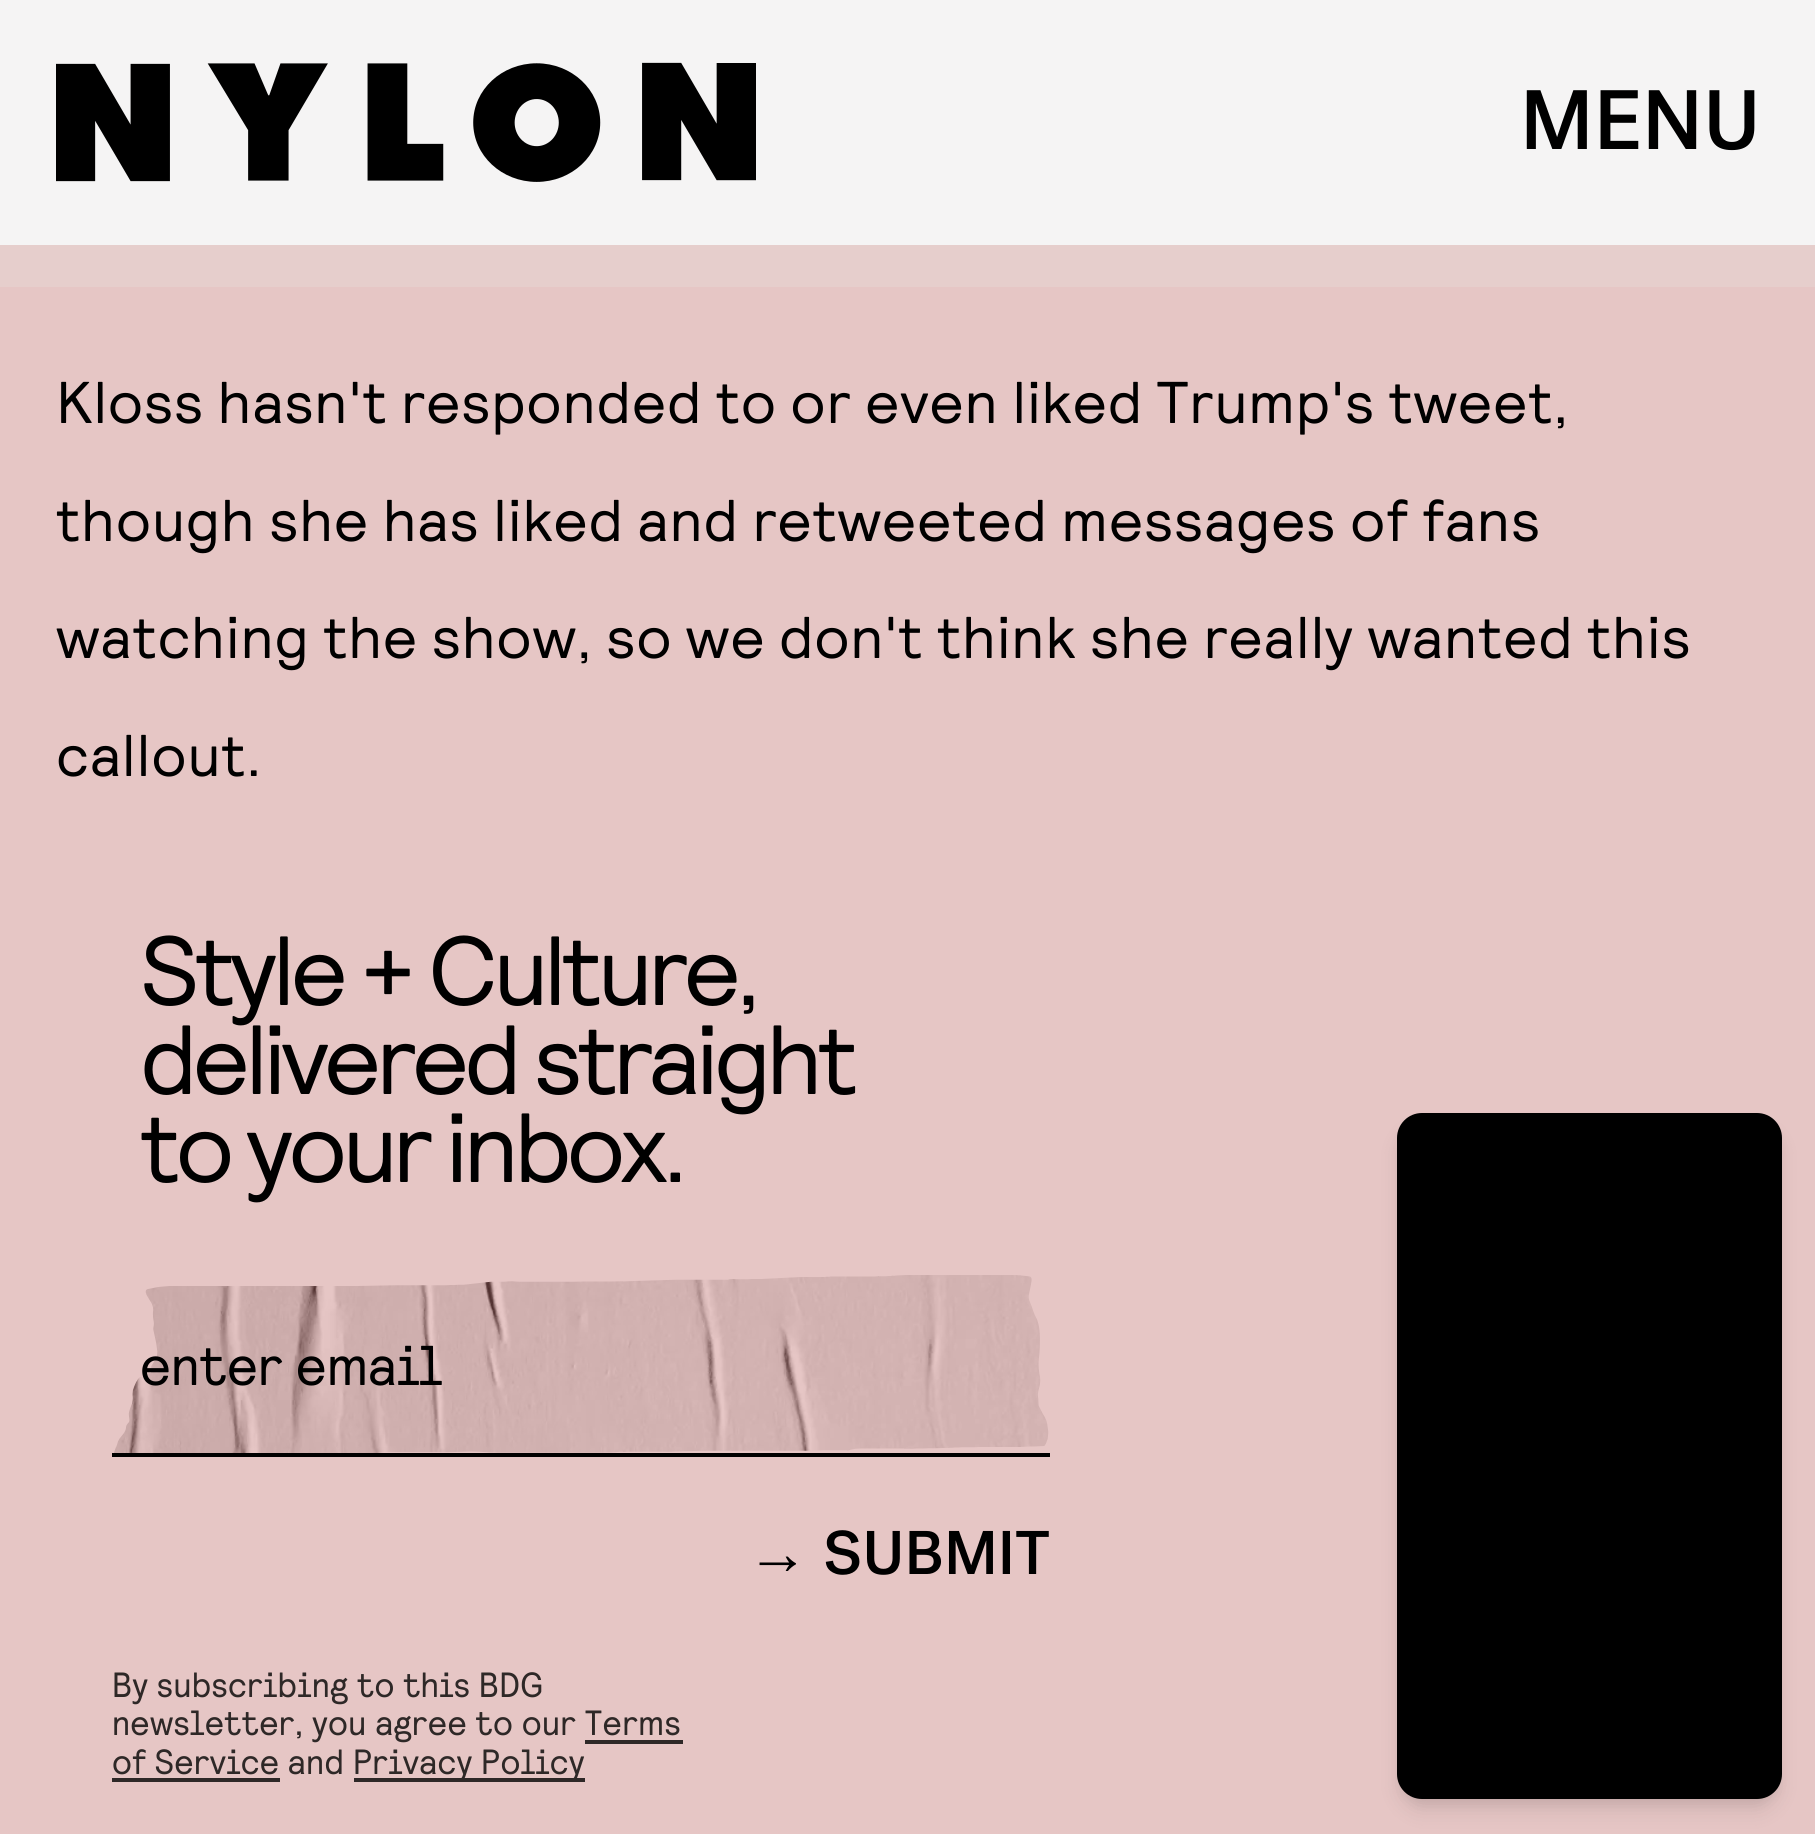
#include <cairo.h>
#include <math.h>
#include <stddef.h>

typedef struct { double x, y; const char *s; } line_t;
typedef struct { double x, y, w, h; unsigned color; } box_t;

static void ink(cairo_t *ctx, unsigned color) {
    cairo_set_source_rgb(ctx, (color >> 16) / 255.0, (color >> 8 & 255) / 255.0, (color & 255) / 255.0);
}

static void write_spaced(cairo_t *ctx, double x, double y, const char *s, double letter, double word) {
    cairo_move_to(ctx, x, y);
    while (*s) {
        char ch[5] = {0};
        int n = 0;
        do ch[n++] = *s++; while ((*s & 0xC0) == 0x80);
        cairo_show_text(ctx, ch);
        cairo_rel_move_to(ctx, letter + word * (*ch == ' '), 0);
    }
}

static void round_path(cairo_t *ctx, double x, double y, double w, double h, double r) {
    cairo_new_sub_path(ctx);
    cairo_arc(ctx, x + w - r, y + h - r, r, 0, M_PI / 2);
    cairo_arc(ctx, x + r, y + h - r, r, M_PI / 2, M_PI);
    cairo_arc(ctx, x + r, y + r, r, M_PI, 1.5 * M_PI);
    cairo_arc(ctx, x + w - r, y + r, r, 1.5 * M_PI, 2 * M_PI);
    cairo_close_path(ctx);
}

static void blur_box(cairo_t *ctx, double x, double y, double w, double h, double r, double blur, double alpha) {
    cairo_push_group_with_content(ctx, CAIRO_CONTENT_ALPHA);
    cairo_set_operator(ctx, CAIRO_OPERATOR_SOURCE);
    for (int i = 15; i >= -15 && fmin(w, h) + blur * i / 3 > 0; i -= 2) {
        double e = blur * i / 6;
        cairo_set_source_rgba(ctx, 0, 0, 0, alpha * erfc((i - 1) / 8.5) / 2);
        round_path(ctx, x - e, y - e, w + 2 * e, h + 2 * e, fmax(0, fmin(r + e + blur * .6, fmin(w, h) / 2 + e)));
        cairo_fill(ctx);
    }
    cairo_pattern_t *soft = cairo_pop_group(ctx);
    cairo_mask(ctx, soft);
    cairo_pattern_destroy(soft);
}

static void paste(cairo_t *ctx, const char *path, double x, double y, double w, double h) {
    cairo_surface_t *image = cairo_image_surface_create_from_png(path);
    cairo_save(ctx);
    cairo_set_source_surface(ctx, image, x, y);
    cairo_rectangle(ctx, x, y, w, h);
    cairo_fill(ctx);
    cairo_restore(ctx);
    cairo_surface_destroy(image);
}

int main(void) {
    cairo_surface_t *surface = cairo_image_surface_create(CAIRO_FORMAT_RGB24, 1815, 1834);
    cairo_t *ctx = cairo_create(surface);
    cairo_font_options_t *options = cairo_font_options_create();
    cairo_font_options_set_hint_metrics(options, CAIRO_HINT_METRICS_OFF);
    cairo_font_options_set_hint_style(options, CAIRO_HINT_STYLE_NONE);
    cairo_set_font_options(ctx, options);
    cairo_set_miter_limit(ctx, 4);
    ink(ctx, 0xE6C6C5);
    cairo_paint(ctx);
    ink(ctx, 0xF5F4F4);
    cairo_rectangle(ctx, 0, 0, 1815, 245);
    cairo_fill(ctx);
    paste(ctx, "media/1.png", 56, 62, 700, 120);
    cairo_select_font_face(ctx, "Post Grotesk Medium", CAIRO_FONT_SLANT_NORMAL, CAIRO_FONT_WEIGHT_NORMAL);
    cairo_set_font_size(ctx, 84);
    ink(ctx, 0x000000);
    cairo_move_to(ctx, 1520, 149);
    cairo_show_text(ctx, "MENU");
    ink(ctx, 0xE6CECC);
    cairo_rectangle(ctx, 0, 245, 1815, 42);
    cairo_fill(ctx);
    cairo_select_font_face(ctx, "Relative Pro", CAIRO_FONT_SLANT_NORMAL, CAIRO_FONT_WEIGHT_NORMAL);
    cairo_set_font_size(ctx, 58.8);
    ink(ctx, 0x000000);
    {
        static const line_t items[] = {
            {56, 423, "Kloss hasn't responded to or even liked Trump's tweet,"},
            {56, 541, "though she has liked and retweeted messages of fans"},
            {56, 658, "watching the show, so we don't think she really wanted this"},
        };
        for (size_t i = 0; i < sizeof items / sizeof *items; i++) {
            write_spaced(ctx, items[i].x, items[i].y, items[i].s, 0.7, -0.25);
        }
    }
    write_spaced(ctx, 56, 776, "callout.", 0.7, 0);
    cairo_set_font_size(ctx, 98);
    {
        static const line_t items[] = {
            {140, 1005, "Style + Culture,"},
            {140, 1094, "delivered straight"},
            {140, 1182, "to your inbox."},
        };
        for (size_t i = 0; i < sizeof items / sizeof *items; i++) {
            write_spaced(ctx, items[i].x, items[i].y, items[i].s, -5, 0);
        }
    }
    paste(ctx, "media/2.png", 114, 1275, 935, 178);
    cairo_rectangle(ctx, 112, 1453, 938, 4);
    cairo_fill(ctx);
    cairo_select_font_face(ctx, "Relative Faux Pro", CAIRO_FONT_SLANT_NORMAL, CAIRO_FONT_WEIGHT_NORMAL);
    cairo_set_font_size(ctx, 56);
    cairo_move_to(ctx, 140, 1385);
    cairo_show_text(ctx, "enter email");
    cairo_select_font_face(ctx, "Liberation Sans", CAIRO_FONT_SLANT_NORMAL, CAIRO_FONT_WEIGHT_NORMAL);
    cairo_set_font_size(ctx, 61.5);
    cairo_move_to(ctx, 747, 1574);
    cairo_show_text(ctx, "→");
    cairo_select_font_face(ctx, "Post Grotesk Medium", CAIRO_FONT_SLANT_NORMAL, CAIRO_FONT_WEIGHT_NORMAL);
    cairo_move_to(ctx, 823, 1574);
    cairo_show_text(ctx, "SUBMIT");
    cairo_select_font_face(ctx, "Relative Faux Pro", CAIRO_FONT_SLANT_NORMAL, CAIRO_FONT_WEIGHT_NORMAL);
    cairo_set_font_size(ctx, 35);
    ink(ctx, 0x2E2827);
    {
        static const line_t items[] = {
            {112, 1697, "By subscribing to this BDG"},
            {112, 1735, "newsletter, you agree to our Terms"},
            {112, 1774, "of Service and"},
        };
        for (size_t i = 0; i < sizeof items / sizeof *items; i++) {
            write_spaced(ctx, items[i].x, items[i].y, items[i].s, 0.35, 0);
        }
    }
    {
        static const box_t items[] = {
            {585, 1740, 98, 4, 0x2E2827},
            {112, 1778, 168, 4, 0x2E2827},
            {354, 1778, 231, 4, 0x2E2827},
        };
        for (size_t i = 0; i < sizeof items / sizeof *items; i++) {
            ink(ctx, items[i].color);
            cairo_rectangle(ctx, items[i].x, items[i].y, items[i].w, items[i].h);
            cairo_fill(ctx);
        }
    }
    write_spaced(ctx, 353, 1774, "Privacy Policy", 0.35, 0);
    ink(ctx, 0x000000);
    blur_box(ctx, 1404, 1127, 371, 672, 18, 7, 0.1);
    blur_box(ctx, 1400, 1131, 378, 679, 21, 10.5, 0.1);
    ink(ctx, 0x000000);
    round_path(ctx, 1397, 1113, 385, 686, 25);
    cairo_fill(ctx);
    cairo_surface_write_to_png(surface, "image.png");
    cairo_font_options_destroy(options);
    cairo_destroy(ctx);
    cairo_surface_destroy(surface);
    return 0;
}
